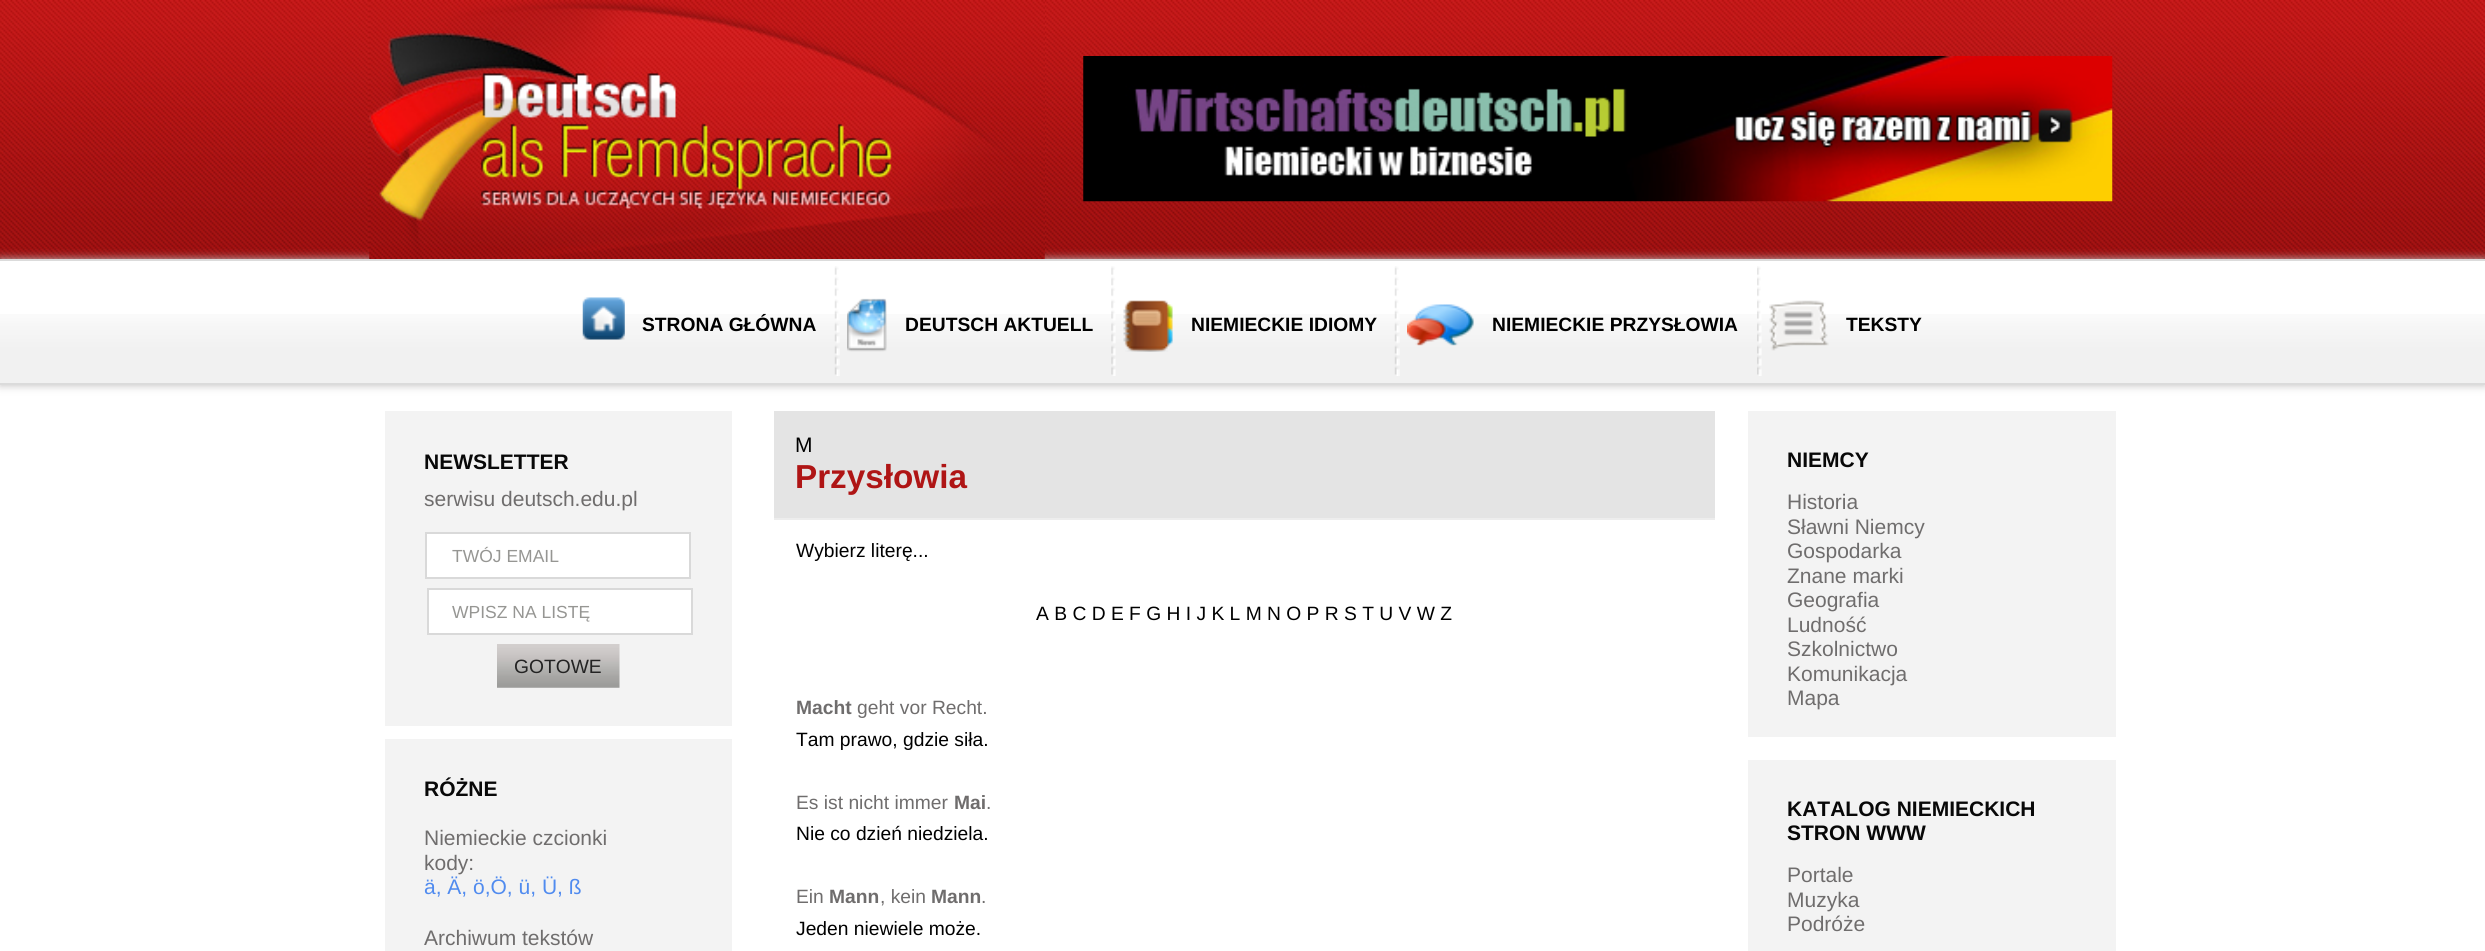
#include <cairo.h>
#include <math.h>
#include <stddef.h>

typedef struct { double x, y; const char *s; } line_t;

static void ink(cairo_t *ctx, unsigned color) {
    cairo_set_source_rgb(ctx, (color >> 16) / 255.0, (color >> 8 & 255) / 255.0, (color & 255) / 255.0);
}

static void round_path(cairo_t *ctx, double x, double y, double w, double h, double r) {
    cairo_new_sub_path(ctx);
    cairo_arc(ctx, x + w - r, y + h - r, r, 0, M_PI / 2);
    cairo_arc(ctx, x + r, y + h - r, r, M_PI / 2, M_PI);
    cairo_arc(ctx, x + r, y + r, r, M_PI, 1.5 * M_PI);
    cairo_arc(ctx, x + w - r, y + r, r, 1.5 * M_PI, 2 * M_PI);
    cairo_close_path(ctx);
}

static void blur_box(cairo_t *ctx, double x, double y, double w, double h, double r, double blur, double alpha) {
    cairo_push_group_with_content(ctx, CAIRO_CONTENT_ALPHA);
    cairo_set_operator(ctx, CAIRO_OPERATOR_SOURCE);
    for (int i = 15; i >= -15 && fmin(w, h) + blur * i / 3 > 0; i -= 2) {
        double e = blur * i / 6;
        cairo_set_source_rgba(ctx, 0, 0, 0, alpha * erfc((i - 1) / 8.5) / 2);
        round_path(ctx, x - e, y - e, w + 2 * e, h + 2 * e, fmax(0, fmin(r + e + blur * .6, fmin(w, h) / 2 + e)));
        cairo_fill(ctx);
    }
    cairo_pattern_t *soft = cairo_pop_group(ctx);
    cairo_mask(ctx, soft);
    cairo_pattern_destroy(soft);
}

static void paste(cairo_t *ctx, const char *path, double x, double y, double w, double h) {
    cairo_surface_t *image = cairo_image_surface_create_from_png(path);
    cairo_save(ctx);
    cairo_set_source_surface(ctx, image, x, y);
    cairo_rectangle(ctx, x, y, w, h);
    cairo_fill(ctx);
    cairo_restore(ctx);
    cairo_surface_destroy(image);
}

int main(void) {
    cairo_surface_t *surface = cairo_image_surface_create(CAIRO_FORMAT_RGB24, 2485, 951);
    cairo_t *ctx = cairo_create(surface);
    cairo_font_options_t *options = cairo_font_options_create();
    cairo_font_options_set_hint_metrics(options, CAIRO_HINT_METRICS_OFF);
    cairo_font_options_set_hint_style(options, CAIRO_HINT_STYLE_NONE);
    cairo_set_font_options(ctx, options);
    cairo_set_miter_limit(ctx, 4);
    ink(ctx, 0xFFFFFF);
    cairo_paint(ctx);
    paste(ctx, "media/1.png", 0, 0, 2485, 259);
    cairo_save(ctx);
    cairo_set_fill_rule(ctx, CAIRO_FILL_RULE_EVEN_ODD);
    cairo_new_path(ctx);
    cairo_move_to(ctx, 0, 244);
    cairo_line_to(ctx, 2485, 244);
    cairo_line_to(ctx, 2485, 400);
    cairo_line_to(ctx, 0, 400);
    cairo_close_path(ctx);
    cairo_move_to(ctx, 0, 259);
    cairo_line_to(ctx, 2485, 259);
    cairo_line_to(ctx, 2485, 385);
    cairo_line_to(ctx, 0, 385);
    cairo_close_path(ctx);
    cairo_clip(ctx);
    ink(ctx, 0xBFBCBC);
    blur_box(ctx, 0, 259, 2485, 126, 0, 4.5, 1);
    cairo_restore(ctx);
    paste(ctx, "media/2.png", 369, 0, 676, 259);
    paste(ctx, "media/3.png", 1083, 56, 1030, 146);
    paste(ctx, "media/4.png", 0, 314, 2485, 69);
    ink(ctx, 0xDBDBDB);
    cairo_rectangle(ctx, 0, 259, 2485, 2);
    cairo_fill(ctx);
    cairo_rectangle(ctx, 0, 383, 2485, 2);
    cairo_fill(ctx);
    paste(ctx, "media/5.png", 582, 297, 43, 43);
    cairo_select_font_face(ctx, "Liberation Sans", CAIRO_FONT_SLANT_NORMAL, CAIRO_FONT_WEIGHT_BOLD);
    cairo_set_font_size(ctx, 19.25);
    ink(ctx, 0x000000);
    cairo_move_to(ctx, 642, 331);
    cairo_show_text(ctx, "STRONA GŁÓWNA");
    paste(ctx, "media/6.png", 834, 266, 6, 110);
    paste(ctx, "media/7.png", 847, 298, 40, 54);
    cairo_move_to(ctx, 905, 331);
    cairo_show_text(ctx, "DEUTSCH AKTUELL");
    paste(ctx, "media/8.png", 1111, 266, 5, 110);
    paste(ctx, "media/9.png", 1123, 300, 50, 52);
    cairo_move_to(ctx, 1191, 331);
    cairo_show_text(ctx, "NIEMIECKIE IDIOMY");
    paste(ctx, "media/6.png", 1394, 266, 6, 110);
    paste(ctx, "media/10.png", 1407, 304, 67, 42);
    cairo_move_to(ctx, 1492, 331);
    cairo_show_text(ctx, "NIEMIECKIE PRZYSŁOWIA");
    paste(ctx, "media/11.png", 1757, 266, 5, 110);
    paste(ctx, "media/12.png", 1769, 300, 60, 51);
    cairo_move_to(ctx, 1846, 331);
    cairo_show_text(ctx, "TEKSTY");
    ink(ctx, 0xF3F3F3);
    cairo_rectangle(ctx, 385, 411, 347, 315);
    cairo_fill(ctx);
    cairo_set_font_size(ctx, 21);
    ink(ctx, 0x080808);
    cairo_move_to(ctx, 424, 469);
    cairo_show_text(ctx, "NEWSLETTER");
    cairo_select_font_face(ctx, "Liberation Sans", CAIRO_FONT_SLANT_NORMAL, CAIRO_FONT_WEIGHT_NORMAL);
    ink(ctx, 0x6F6D6D);
    cairo_move_to(ctx, 424, 506);
    cairo_show_text(ctx, "serwisu deutsch.edu.pl");
    ink(ctx, 0xFFFFFF);
    cairo_rectangle(ctx, 426, 533, 264, 45);
    cairo_fill_preserve(ctx);
    ink(ctx, 0xD9D9D9);
    cairo_stroke(ctx);
    cairo_set_font_size(ctx, 17.5);
    ink(ctx, 0x969693);
    cairo_move_to(ctx, 452, 562);
    cairo_show_text(ctx, "TWÓJ EMAIL");
    ink(ctx, 0xFFFFFF);
    cairo_rectangle(ctx, 428, 589, 264, 45);
    cairo_fill_preserve(ctx);
    ink(ctx, 0xD9D9D9);
    cairo_stroke(ctx);
    ink(ctx, 0x969693);
    cairo_move_to(ctx, 452, 618);
    cairo_show_text(ctx, "WPISZ NA LISTĘ");
    paste(ctx, "media/13.png", 497, 644, 123, 44);
    cairo_set_font_size(ctx, 19.25);
    ink(ctx, 0x232323);
    cairo_move_to(ctx, 514, 673);
    cairo_show_text(ctx, "GOTOWE");
    ink(ctx, 0xF3F3F3);
    cairo_rectangle(ctx, 385, 739, 347, 212);
    cairo_fill(ctx);
    cairo_select_font_face(ctx, "Liberation Sans", CAIRO_FONT_SLANT_NORMAL, CAIRO_FONT_WEIGHT_BOLD);
    cairo_set_font_size(ctx, 21);
    ink(ctx, 0x080808);
    cairo_move_to(ctx, 424, 796);
    cairo_show_text(ctx, "RÓŻNE");
    cairo_select_font_face(ctx, "Liberation Sans", CAIRO_FONT_SLANT_NORMAL, CAIRO_FONT_WEIGHT_NORMAL);
    ink(ctx, 0x6F6D6D);
    cairo_move_to(ctx, 424, 845);
    cairo_show_text(ctx, "Niemieckie czcionki");
    cairo_move_to(ctx, 424, 870);
    cairo_show_text(ctx, "kody:");
    ink(ctx, 0x508BEF);
    cairo_move_to(ctx, 424, 894);
    cairo_show_text(ctx, "ä, Ä, ö,Ö, ü, Ü, ß");
    ink(ctx, 0x6F6D6D);
    cairo_move_to(ctx, 424, 945);
    cairo_show_text(ctx, "Archiwum tekstów");
    ink(ctx, 0xE4E4E4);
    cairo_rectangle(ctx, 774, 411, 941, 107);
    cairo_fill(ctx);
    ink(ctx, 0xEDEDED);
    cairo_rectangle(ctx, 774, 518, 941, 2);
    cairo_fill(ctx);
    ink(ctx, 0x000000);
    cairo_move_to(ctx, 795, 452);
    cairo_show_text(ctx, "M");
    cairo_select_font_face(ctx, "Liberation Sans", CAIRO_FONT_SLANT_NORMAL, CAIRO_FONT_WEIGHT_BOLD);
    cairo_set_font_size(ctx, 33.25);
    ink(ctx, 0xAF1515);
    cairo_move_to(ctx, 795, 488);
    cairo_show_text(ctx, "Przysłowia");
    cairo_select_font_face(ctx, "Liberation Sans", CAIRO_FONT_SLANT_NORMAL, CAIRO_FONT_WEIGHT_NORMAL);
    cairo_set_font_size(ctx, 19.25);
    ink(ctx, 0x000000);
    cairo_move_to(ctx, 796, 557);
    cairo_show_text(ctx, "Wybierz literę...");
    cairo_move_to(ctx, 1036, 620);
    cairo_show_text(ctx, "A B C D E F G H I J K L M N O P R S T U V W Z");
    cairo_select_font_face(ctx, "Liberation Sans", CAIRO_FONT_SLANT_NORMAL, CAIRO_FONT_WEIGHT_BOLD);
    ink(ctx, 0x6F6D6D);
    cairo_move_to(ctx, 796, 714);
    cairo_show_text(ctx, "Macht");
    cairo_select_font_face(ctx, "Liberation Sans", CAIRO_FONT_SLANT_NORMAL, CAIRO_FONT_WEIGHT_NORMAL);
    cairo_move_to(ctx, 857, 714);
    cairo_show_text(ctx, "geht vor Recht.");
    ink(ctx, 0x000000);
    cairo_move_to(ctx, 796, 746);
    cairo_show_text(ctx, "Tam prawo, gdzie siła.");
    ink(ctx, 0x6F6D6D);
    cairo_move_to(ctx, 796, 809);
    cairo_show_text(ctx, "Es ist nicht immer");
    cairo_select_font_face(ctx, "Liberation Sans", CAIRO_FONT_SLANT_NORMAL, CAIRO_FONT_WEIGHT_BOLD);
    cairo_move_to(ctx, 954, 809);
    cairo_show_text(ctx, "Mai");
    cairo_select_font_face(ctx, "Liberation Sans", CAIRO_FONT_SLANT_NORMAL, CAIRO_FONT_WEIGHT_NORMAL);
    cairo_move_to(ctx, 986, 809);
    cairo_show_text(ctx, ".");
    ink(ctx, 0x000000);
    cairo_move_to(ctx, 796, 840);
    cairo_show_text(ctx, "Nie co dzień niedziela.");
    ink(ctx, 0x6F6D6D);
    cairo_move_to(ctx, 796, 903);
    cairo_show_text(ctx, "Ein");
    cairo_select_font_face(ctx, "Liberation Sans", CAIRO_FONT_SLANT_NORMAL, CAIRO_FONT_WEIGHT_BOLD);
    cairo_move_to(ctx, 829, 903);
    cairo_show_text(ctx, "Mann");
    cairo_select_font_face(ctx, "Liberation Sans", CAIRO_FONT_SLANT_NORMAL, CAIRO_FONT_WEIGHT_NORMAL);
    cairo_move_to(ctx, 880, 903);
    cairo_show_text(ctx, ", kein");
    cairo_select_font_face(ctx, "Liberation Sans", CAIRO_FONT_SLANT_NORMAL, CAIRO_FONT_WEIGHT_BOLD);
    cairo_move_to(ctx, 931, 903);
    cairo_show_text(ctx, "Mann");
    cairo_select_font_face(ctx, "Liberation Sans", CAIRO_FONT_SLANT_NORMAL, CAIRO_FONT_WEIGHT_NORMAL);
    cairo_move_to(ctx, 981, 903);
    cairo_show_text(ctx, ".");
    ink(ctx, 0x000000);
    cairo_move_to(ctx, 796, 935);
    cairo_show_text(ctx, "Jeden niewiele może.");
    ink(ctx, 0xF3F3F3);
    cairo_rectangle(ctx, 1748, 411, 368, 326);
    cairo_fill(ctx);
    cairo_select_font_face(ctx, "Liberation Sans", CAIRO_FONT_SLANT_NORMAL, CAIRO_FONT_WEIGHT_BOLD);
    cairo_set_font_size(ctx, 21);
    ink(ctx, 0x080808);
    cairo_move_to(ctx, 1787, 467);
    cairo_show_text(ctx, "NIEMCY");
    cairo_select_font_face(ctx, "Liberation Sans", CAIRO_FONT_SLANT_NORMAL, CAIRO_FONT_WEIGHT_NORMAL);
    ink(ctx, 0x6F6D6D);
    {
        static const line_t items[] = {
            {1787, 509, "Historia"},
            {1787, 534, "Sławni Niemcy"},
            {1787, 558, "Gospodarka"},
            {1787, 583, "Znane marki"},
            {1787, 607, "Geografia"},
            {1787, 632, "Ludność"},
            {1787, 656, "Szkolnictwo"},
            {1787, 681, "Komunikacja"},
            {1787, 705, "Mapa"},
        };
        for (size_t i = 0; i < sizeof items / sizeof *items; i++) {
            cairo_move_to(ctx, items[i].x, items[i].y);
            cairo_show_text(ctx, items[i].s);
        }
    }
    ink(ctx, 0xF3F3F3);
    cairo_rectangle(ctx, 1748, 760, 368, 191);
    cairo_fill(ctx);
    cairo_select_font_face(ctx, "Liberation Sans", CAIRO_FONT_SLANT_NORMAL, CAIRO_FONT_WEIGHT_BOLD);
    ink(ctx, 0x080808);
    cairo_move_to(ctx, 1787, 816);
    cairo_show_text(ctx, "KATALOG NIEMIECKICH");
    cairo_move_to(ctx, 1787, 840);
    cairo_show_text(ctx, "STRON WWW");
    cairo_select_font_face(ctx, "Liberation Sans", CAIRO_FONT_SLANT_NORMAL, CAIRO_FONT_WEIGHT_NORMAL);
    ink(ctx, 0x6F6D6D);
    {
        static const line_t items[] = {
            {1787, 882, "Portale"},
            {1787, 907, "Muzyka"},
            {1787, 931, "Podróże"},
        };
        for (size_t i = 0; i < sizeof items / sizeof *items; i++) {
            cairo_move_to(ctx, items[i].x, items[i].y);
            cairo_show_text(ctx, items[i].s);
        }
    }
    cairo_surface_write_to_png(surface, "image.png");
    cairo_font_options_destroy(options);
    cairo_destroy(ctx);
    cairo_surface_destroy(surface);
    return 0;
}
